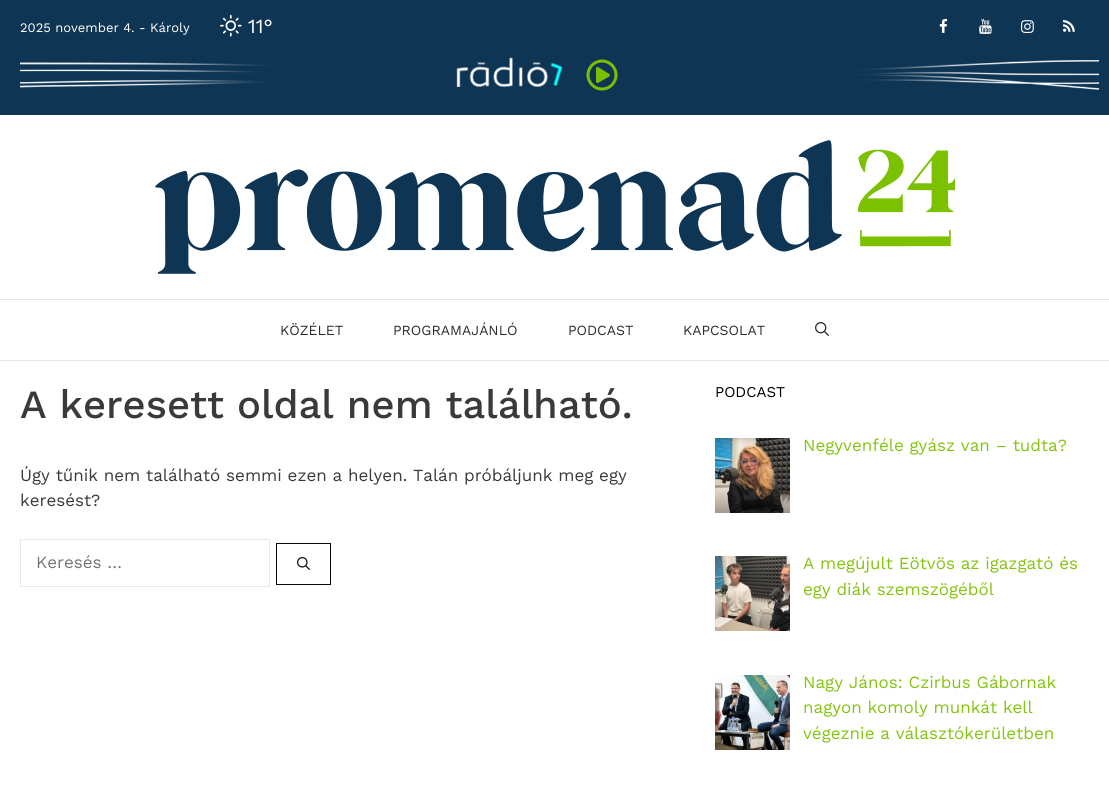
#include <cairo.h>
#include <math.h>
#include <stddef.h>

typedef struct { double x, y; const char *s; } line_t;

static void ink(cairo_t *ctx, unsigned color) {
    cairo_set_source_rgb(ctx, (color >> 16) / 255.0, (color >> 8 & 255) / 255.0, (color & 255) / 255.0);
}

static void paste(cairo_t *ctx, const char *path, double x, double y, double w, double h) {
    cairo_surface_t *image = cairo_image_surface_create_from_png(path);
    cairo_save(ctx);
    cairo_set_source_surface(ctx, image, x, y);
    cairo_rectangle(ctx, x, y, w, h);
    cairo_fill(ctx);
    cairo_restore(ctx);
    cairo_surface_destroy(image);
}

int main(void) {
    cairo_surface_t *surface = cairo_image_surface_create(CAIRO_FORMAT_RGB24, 1109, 790);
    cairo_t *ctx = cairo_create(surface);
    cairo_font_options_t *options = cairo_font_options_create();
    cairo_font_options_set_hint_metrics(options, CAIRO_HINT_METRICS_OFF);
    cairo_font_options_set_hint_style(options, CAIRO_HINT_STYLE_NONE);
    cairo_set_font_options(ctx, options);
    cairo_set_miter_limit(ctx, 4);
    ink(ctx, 0xFFFFFF);
    cairo_paint(ctx);
    ink(ctx, 0x0F3554);
    cairo_rectangle(ctx, 0, 0, 1109, 115);
    cairo_fill(ctx);
    cairo_select_font_face(ctx, "Work Sans", CAIRO_FONT_SLANT_NORMAL, CAIRO_FONT_WEIGHT_NORMAL);
    cairo_set_font_size(ctx, 13);
    ink(ctx, 0xFFFFFF);
    cairo_move_to(ctx, 20, 32);
    cairo_show_text(ctx, "2025 november 4. - Károly");
    paste(ctx, "media/1.png", 220, 14, 22, 23);
    cairo_set_font_size(ctx, 20);
    cairo_move_to(ctx, 248, 33);
    cairo_show_text(ctx, "11°");
    paste(ctx, "media/2.png", 939, 18, 9, 15);
    paste(ctx, "media/3.png", 979, 18, 13, 16);
    paste(ctx, "media/4.png", 1021, 20, 13, 13);
    paste(ctx, "media/5.png", 1063, 20, 12, 12);
    paste(ctx, "media/6.png", 20, 60, 1079, 30);
    paste(ctx, "media/7.png", 456, 57, 107, 30);
    paste(ctx, "media/8.png", 586, 59, 32, 32);
    paste(ctx, "media/9.png", 155, 140, 800, 134);
    ink(ctx, 0xE6E6E6);
    cairo_rectangle(ctx, 0, 299, 1109, 1);
    cairo_fill(ctx);
    cairo_rectangle(ctx, 0, 360, 1109, 1);
    cairo_fill(ctx);
    cairo_set_font_size(ctx, 14);
    ink(ctx, 0x2D2D2D);
    {
        static const line_t items[] = {
            {280, 335, "KÖZÉLET"},
            {393, 335, "PROGRAMAJÁNLÓ"},
            {568, 335, "PODCAST"},
            {683, 335, "KAPCSOLAT"},
        };
        for (size_t i = 0; i < sizeof items / sizeof *items; i++) {
            cairo_move_to(ctx, items[i].x, items[i].y);
            cairo_show_text(ctx, items[i].s);
        }
    }
    paste(ctx, "media/10.png", 815, 322, 14, 14);
    cairo_select_font_face(ctx, "Work Sans Medium", CAIRO_FONT_SLANT_NORMAL, CAIRO_FONT_WEIGHT_NORMAL);
    cairo_set_font_size(ctx, 40);
    ink(ctx, 0x3A3A3A);
    cairo_move_to(ctx, 20, 418);
    cairo_show_text(ctx, "A keresett oldal nem található.");
    cairo_select_font_face(ctx, "Work Sans", CAIRO_FONT_SLANT_NORMAL, CAIRO_FONT_WEIGHT_NORMAL);
    cairo_set_font_size(ctx, 17);
    cairo_move_to(ctx, 20, 481);
    cairo_show_text(ctx, "Úgy tűnik nem található semmi ezen a helyen. Talán próbáljunk meg egy");
    cairo_move_to(ctx, 20, 506);
    cairo_show_text(ctx, "keresést?");
    cairo_rectangle(ctx, 20.5, 539.5, 249, 47);
    ink(ctx, 0xE8E8E8);
    cairo_set_line_width(ctx, 1);
    cairo_stroke(ctx);
    ink(ctx, 0x757575);
    cairo_move_to(ctx, 36, 568);
    cairo_show_text(ctx, "Keresés …");
    cairo_rectangle(ctx, 276.5, 543.5, 54, 41);
    ink(ctx, 0x0A0A0A);
    cairo_stroke(ctx);
    paste(ctx, "media/11.png", 297, 557, 13, 13);
    cairo_set_font_size(ctx, 15);
    ink(ctx, 0x000000);
    cairo_move_to(ctx, 715, 397);
    cairo_show_text(ctx, "PODCAST");
    paste(ctx, "media/12.png", 715, 438, 75, 75);
    cairo_set_font_size(ctx, 17);
    ink(ctx, 0x84C410);
    cairo_move_to(ctx, 803, 451);
    cairo_show_text(ctx, "Negyvenféle gyász van – tudta?");
    paste(ctx, "media/13.png", 715, 556, 75, 75);
    cairo_move_to(ctx, 803, 569);
    cairo_show_text(ctx, "A megújult Eötvös az igazgató és");
    cairo_move_to(ctx, 803, 595);
    cairo_show_text(ctx, "egy diák szemszögéből");
    paste(ctx, "media/14.png", 715, 675, 75, 75);
    {
        static const line_t items[] = {
            {803, 688, "Nagy János: Czirbus Gábornak"},
            {803, 713, "nagyon komoly munkát kell"},
            {803, 739, "végeznie a választókerületben"},
        };
        for (size_t i = 0; i < sizeof items / sizeof *items; i++) {
            cairo_move_to(ctx, items[i].x, items[i].y);
            cairo_show_text(ctx, items[i].s);
        }
    }
    cairo_surface_write_to_png(surface, "image.png");
    cairo_font_options_destroy(options);
    cairo_destroy(ctx);
    cairo_surface_destroy(surface);
    return 0;
}
